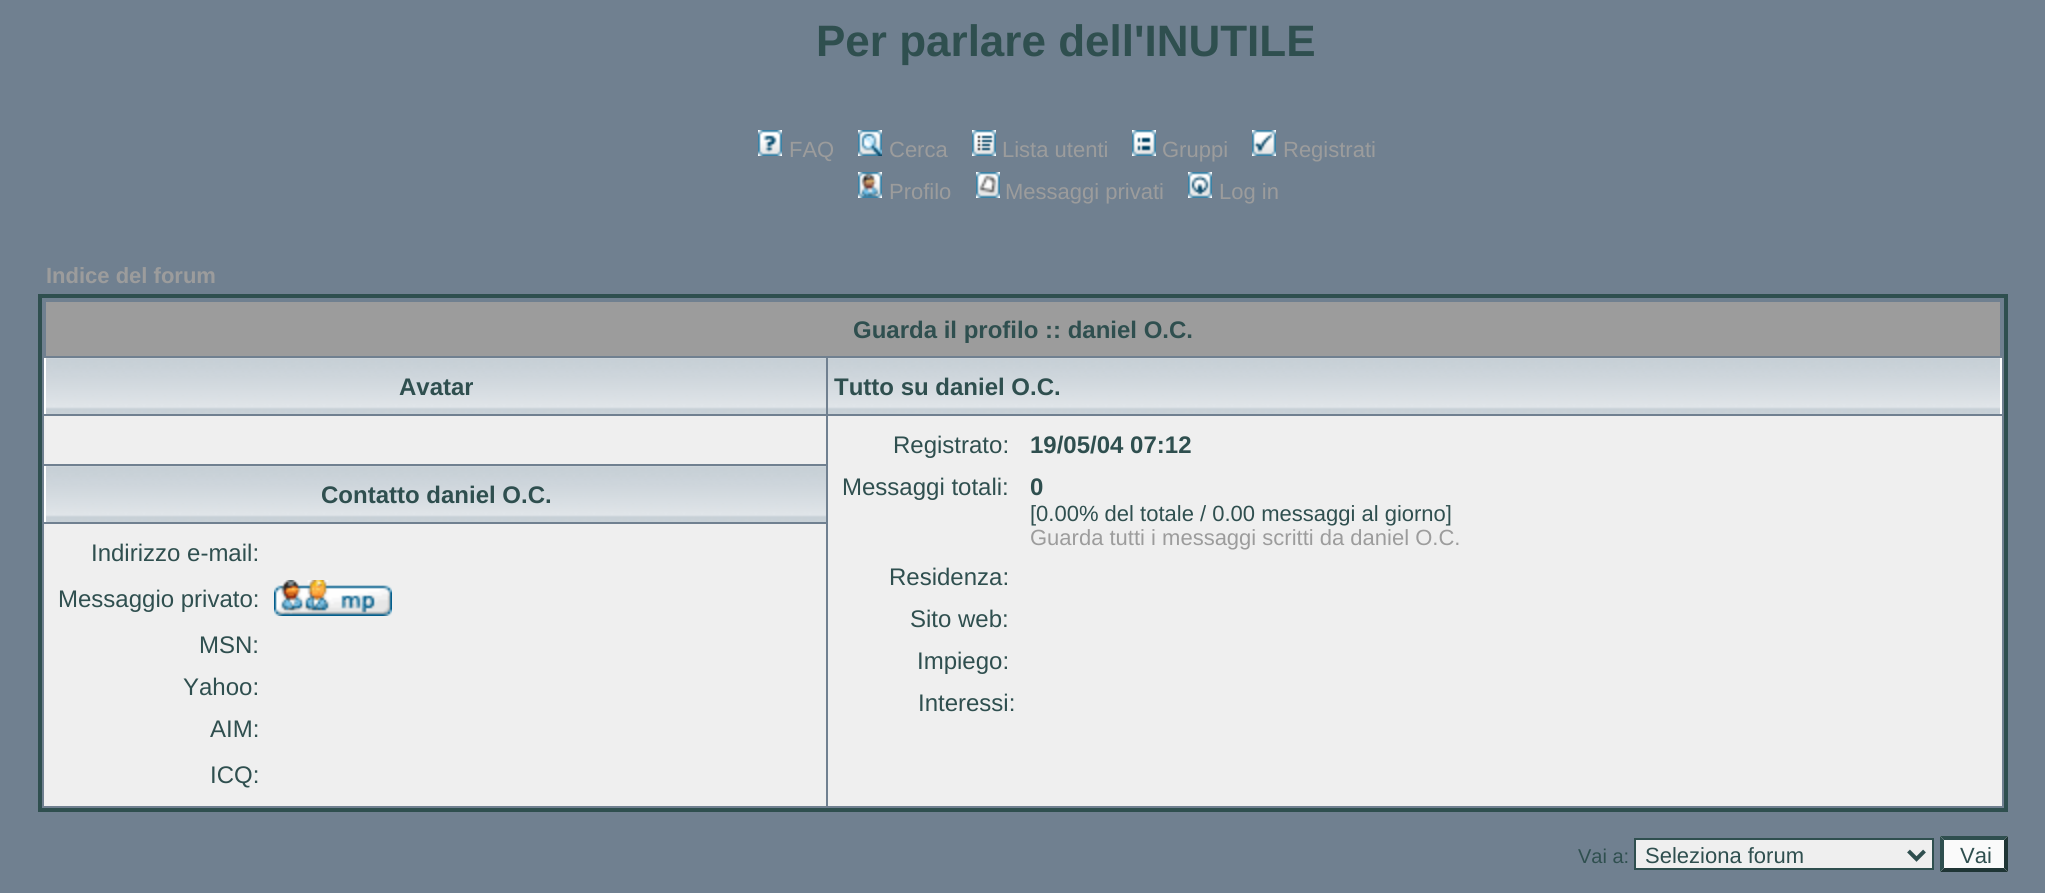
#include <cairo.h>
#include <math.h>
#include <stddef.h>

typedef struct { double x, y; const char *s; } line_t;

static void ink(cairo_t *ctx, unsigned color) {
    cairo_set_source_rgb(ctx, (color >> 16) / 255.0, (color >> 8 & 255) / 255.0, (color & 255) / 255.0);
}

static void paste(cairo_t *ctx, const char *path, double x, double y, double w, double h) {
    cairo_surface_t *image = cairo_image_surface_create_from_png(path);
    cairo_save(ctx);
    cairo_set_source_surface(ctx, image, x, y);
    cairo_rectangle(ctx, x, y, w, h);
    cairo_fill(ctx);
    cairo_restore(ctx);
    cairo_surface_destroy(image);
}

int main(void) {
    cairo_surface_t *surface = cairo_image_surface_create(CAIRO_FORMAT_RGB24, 2045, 893);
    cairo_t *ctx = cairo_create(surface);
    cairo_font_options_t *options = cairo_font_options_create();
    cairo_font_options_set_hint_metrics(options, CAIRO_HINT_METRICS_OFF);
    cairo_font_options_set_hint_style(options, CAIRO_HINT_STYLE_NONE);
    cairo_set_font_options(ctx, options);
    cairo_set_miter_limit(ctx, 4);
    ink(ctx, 0x708090);
    cairo_paint(ctx);
    cairo_select_font_face(ctx, "Liberation Sans", CAIRO_FONT_SLANT_NORMAL, CAIRO_FONT_WEIGHT_BOLD);
    cairo_set_font_size(ctx, 44);
    ink(ctx, 0x2F4F4F);
    cairo_move_to(ctx, 816, 56);
    cairo_show_text(ctx, "Per parlare dell'INUTILE");
    paste(ctx, "media/1.png", 758, 130, 24, 26);
    cairo_select_font_face(ctx, "Liberation Sans", CAIRO_FONT_SLANT_NORMAL, CAIRO_FONT_WEIGHT_NORMAL);
    cairo_set_font_size(ctx, 22);
    ink(ctx, 0x9C9C9C);
    cairo_move_to(ctx, 789, 157);
    cairo_show_text(ctx, "FAQ");
    paste(ctx, "media/2.png", 858, 130, 24, 26);
    cairo_move_to(ctx, 889, 157);
    cairo_show_text(ctx, "Cerca");
    paste(ctx, "media/3.png", 972, 130, 24, 26);
    cairo_move_to(ctx, 1002, 157);
    cairo_show_text(ctx, "Lista utenti");
    paste(ctx, "media/4.png", 1132, 130, 24, 26);
    cairo_move_to(ctx, 1162, 157);
    cairo_show_text(ctx, "Gruppi");
    paste(ctx, "media/5.png", 1252, 130, 24, 26);
    cairo_move_to(ctx, 1283, 157);
    cairo_show_text(ctx, "Registrati");
    paste(ctx, "media/6.png", 858, 172, 24, 26);
    cairo_move_to(ctx, 889, 199);
    cairo_show_text(ctx, "Profilo");
    paste(ctx, "media/7.png", 976, 172, 24, 26);
    cairo_move_to(ctx, 1005, 199);
    cairo_show_text(ctx, "Messaggi privati");
    paste(ctx, "media/8.png", 1188, 172, 24, 26);
    cairo_move_to(ctx, 1219, 199);
    cairo_show_text(ctx, "Log in");
    cairo_select_font_face(ctx, "Liberation Sans", CAIRO_FONT_SLANT_NORMAL, CAIRO_FONT_WEIGHT_BOLD);
    cairo_move_to(ctx, 46, 283);
    cairo_show_text(ctx, "Indice del forum");
    cairo_rectangle(ctx, 40, 296, 1966, 514);
    ink(ctx, 0x2F4F4F);
    cairo_set_line_width(ctx, 4);
    cairo_stroke(ctx);
    ink(ctx, 0x9C9C9C);
    cairo_rectangle(ctx, 46, 302, 1954, 54);
    cairo_fill(ctx);
    cairo_set_font_size(ctx, 24);
    ink(ctx, 0x2F4F4F);
    cairo_move_to(ctx, 853, 338);
    cairo_show_text(ctx, "Guarda il profilo :: daniel O.C.");
    paste(ctx, "media/9.png", 46, 358, 780, 56);
    ink(ctx, 0xFFFFFF);
    cairo_rectangle(ctx, 44, 358, 2, 56);
    cairo_fill(ctx);
    ink(ctx, 0x2F4F4F);
    cairo_move_to(ctx, 399, 395);
    cairo_show_text(ctx, "Avatar");
    paste(ctx, "media/10.png", 828, 358, 1172, 56);
    ink(ctx, 0xFFFFFF);
    cairo_rectangle(ctx, 2000, 358, 2, 56);
    cairo_fill(ctx);
    ink(ctx, 0x2F4F4F);
    cairo_move_to(ctx, 834, 395);
    cairo_show_text(ctx, "Tutto su daniel O.C.");
    paste(ctx, "media/9.png", 46, 466, 780, 56);
    ink(ctx, 0xFFFFFF);
    cairo_rectangle(ctx, 44, 466, 2, 56);
    cairo_fill(ctx);
    ink(ctx, 0x2F4F4F);
    cairo_move_to(ctx, 321, 503);
    cairo_show_text(ctx, "Contatto daniel O.C.");
    ink(ctx, 0xEFEFEF);
    cairo_rectangle(ctx, 44, 416, 782, 48);
    cairo_fill(ctx);
    cairo_rectangle(ctx, 828, 416, 1174, 390);
    cairo_fill(ctx);
    cairo_select_font_face(ctx, "Liberation Sans", CAIRO_FONT_SLANT_NORMAL, CAIRO_FONT_WEIGHT_NORMAL);
    ink(ctx, 0x2F4F4F);
    cairo_move_to(ctx, 893, 453);
    cairo_show_text(ctx, "Registrato:");
    cairo_select_font_face(ctx, "Liberation Sans", CAIRO_FONT_SLANT_NORMAL, CAIRO_FONT_WEIGHT_BOLD);
    cairo_move_to(ctx, 1030, 453);
    cairo_show_text(ctx, "19/05/04 07:12");
    cairo_select_font_face(ctx, "Liberation Sans", CAIRO_FONT_SLANT_NORMAL, CAIRO_FONT_WEIGHT_NORMAL);
    cairo_move_to(ctx, 842, 495);
    cairo_show_text(ctx, "Messaggi totali:");
    cairo_select_font_face(ctx, "Liberation Sans", CAIRO_FONT_SLANT_NORMAL, CAIRO_FONT_WEIGHT_BOLD);
    cairo_move_to(ctx, 1030, 495);
    cairo_show_text(ctx, "0");
    cairo_select_font_face(ctx, "Liberation Sans", CAIRO_FONT_SLANT_NORMAL, CAIRO_FONT_WEIGHT_NORMAL);
    cairo_set_font_size(ctx, 22);
    cairo_move_to(ctx, 1030, 521);
    cairo_show_text(ctx, "[0.00% del totale / 0.00 messaggi al giorno]");
    ink(ctx, 0x9C9C9C);
    cairo_move_to(ctx, 1030, 545);
    cairo_show_text(ctx, "Guarda tutti i messaggi scritti da daniel O.C.");
    cairo_set_font_size(ctx, 24);
    ink(ctx, 0x2F4F4F);
    {
        static const line_t items[] = {
            {889, 585, "Residenza:"},
            {910, 627, "Sito web:"},
            {917, 669, "Impiego:"},
            {918, 711, "Interessi:"},
        };
        for (size_t i = 0; i < sizeof items / sizeof *items; i++) {
            cairo_move_to(ctx, items[i].x, items[i].y);
            cairo_show_text(ctx, items[i].s);
        }
    }
    ink(ctx, 0xEFEFEF);
    cairo_rectangle(ctx, 44, 524, 782, 282);
    cairo_fill(ctx);
    ink(ctx, 0x2F4F4F);
    cairo_move_to(ctx, 91, 561);
    cairo_show_text(ctx, "Indirizzo e-mail:");
    cairo_move_to(ctx, 58, 607);
    cairo_show_text(ctx, "Messaggio privato:");
    paste(ctx, "media/11.png", 274, 580, 118, 36);
    {
        static const line_t items[] = {
            {199, 653, "MSN:"},
            {183, 695, "Yahoo:"},
            {210, 737, "AIM:"},
            {210, 783, "ICQ:"},
        };
        for (size_t i = 0; i < sizeof items / sizeof *items; i++) {
            cairo_move_to(ctx, items[i].x, items[i].y);
            cairo_show_text(ctx, items[i].s);
        }
    }
    cairo_set_font_size(ctx, 20);
    cairo_move_to(ctx, 1578, 863);
    cairo_show_text(ctx, "Vai a:");
    ink(ctx, 0xEFEFEF);
    cairo_rectangle(ctx, 1635, 839, 298, 30);
    cairo_fill_preserve(ctx);
    ink(ctx, 0x2F4F4F);
    cairo_set_line_width(ctx, 2);
    cairo_stroke(ctx);
    cairo_new_path(ctx);
    cairo_move_to(ctx, 1908.5, 851);
    cairo_line_to(ctx, 1916.5, 859);
    cairo_line_to(ctx, 1924.5, 851);
    cairo_set_line_width(ctx, 4);
    cairo_stroke(ctx);
    cairo_set_font_size(ctx, 22);
    cairo_move_to(ctx, 1645, 863);
    cairo_show_text(ctx, "Seleziona forum");
    ink(ctx, 0xFAFAFA);
    cairo_rectangle(ctx, 1940, 836, 68, 36);
    cairo_fill(ctx);
    ink(ctx, 0x2F4F4F);
    cairo_new_path(ctx);
    cairo_move_to(ctx, 1940, 836);
    cairo_line_to(ctx, 2008, 836);
    cairo_line_to(ctx, 2004, 840);
    cairo_line_to(ctx, 1944, 840);
    cairo_close_path(ctx);
    cairo_fill(ctx);
    ink(ctx, 0x1F3535);
    cairo_new_path(ctx);
    cairo_move_to(ctx, 2008, 836);
    cairo_line_to(ctx, 2008, 872);
    cairo_line_to(ctx, 2004, 868);
    cairo_line_to(ctx, 2004, 840);
    cairo_close_path(ctx);
    cairo_fill(ctx);
    cairo_new_path(ctx);
    cairo_move_to(ctx, 2008, 872);
    cairo_line_to(ctx, 1940, 872);
    cairo_line_to(ctx, 1944, 868);
    cairo_line_to(ctx, 2004, 868);
    cairo_close_path(ctx);
    cairo_fill(ctx);
    ink(ctx, 0x2F4F4F);
    cairo_new_path(ctx);
    cairo_move_to(ctx, 1940, 872);
    cairo_line_to(ctx, 1940, 836);
    cairo_line_to(ctx, 1944, 840);
    cairo_line_to(ctx, 1944, 868);
    cairo_close_path(ctx);
    cairo_fill(ctx);
    cairo_move_to(ctx, 1960, 863);
    cairo_show_text(ctx, "Vai");
    cairo_surface_write_to_png(surface, "image.png");
    cairo_font_options_destroy(options);
    cairo_destroy(ctx);
    cairo_surface_destroy(surface);
    return 0;
}
